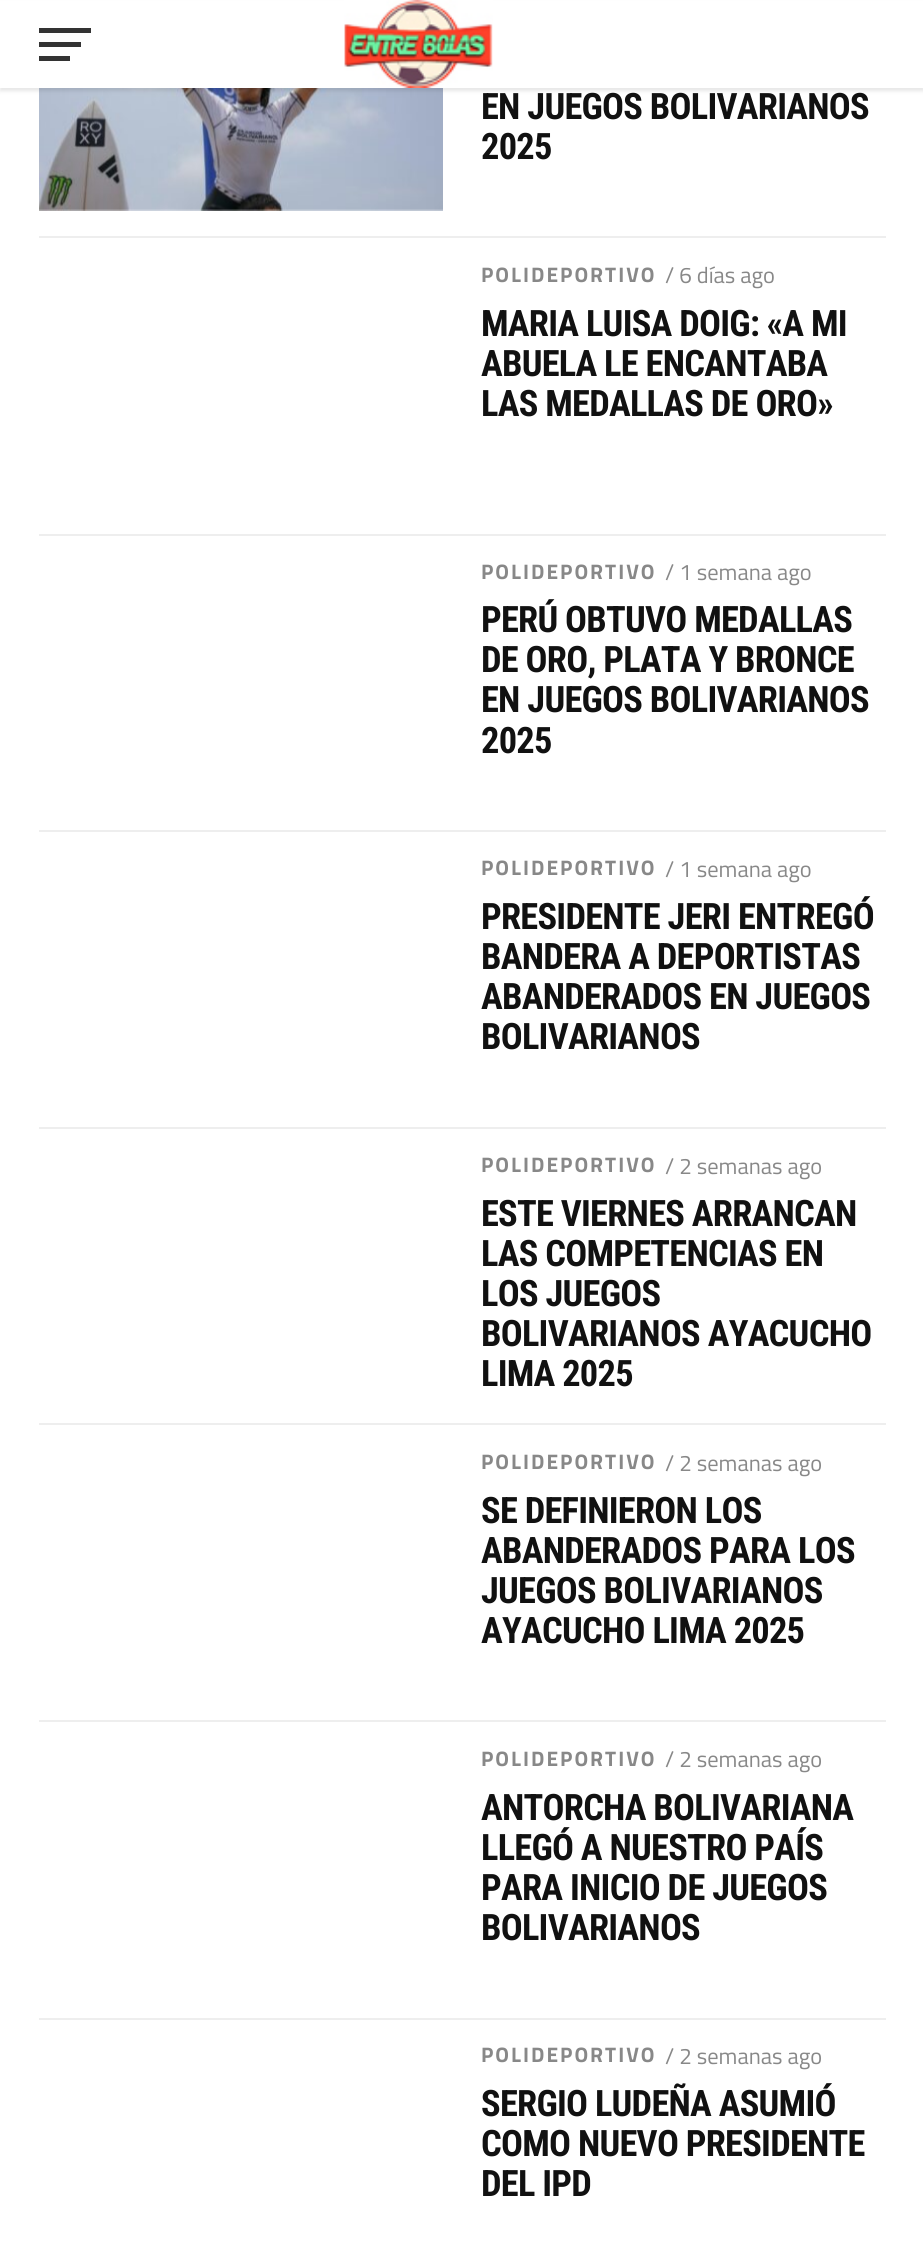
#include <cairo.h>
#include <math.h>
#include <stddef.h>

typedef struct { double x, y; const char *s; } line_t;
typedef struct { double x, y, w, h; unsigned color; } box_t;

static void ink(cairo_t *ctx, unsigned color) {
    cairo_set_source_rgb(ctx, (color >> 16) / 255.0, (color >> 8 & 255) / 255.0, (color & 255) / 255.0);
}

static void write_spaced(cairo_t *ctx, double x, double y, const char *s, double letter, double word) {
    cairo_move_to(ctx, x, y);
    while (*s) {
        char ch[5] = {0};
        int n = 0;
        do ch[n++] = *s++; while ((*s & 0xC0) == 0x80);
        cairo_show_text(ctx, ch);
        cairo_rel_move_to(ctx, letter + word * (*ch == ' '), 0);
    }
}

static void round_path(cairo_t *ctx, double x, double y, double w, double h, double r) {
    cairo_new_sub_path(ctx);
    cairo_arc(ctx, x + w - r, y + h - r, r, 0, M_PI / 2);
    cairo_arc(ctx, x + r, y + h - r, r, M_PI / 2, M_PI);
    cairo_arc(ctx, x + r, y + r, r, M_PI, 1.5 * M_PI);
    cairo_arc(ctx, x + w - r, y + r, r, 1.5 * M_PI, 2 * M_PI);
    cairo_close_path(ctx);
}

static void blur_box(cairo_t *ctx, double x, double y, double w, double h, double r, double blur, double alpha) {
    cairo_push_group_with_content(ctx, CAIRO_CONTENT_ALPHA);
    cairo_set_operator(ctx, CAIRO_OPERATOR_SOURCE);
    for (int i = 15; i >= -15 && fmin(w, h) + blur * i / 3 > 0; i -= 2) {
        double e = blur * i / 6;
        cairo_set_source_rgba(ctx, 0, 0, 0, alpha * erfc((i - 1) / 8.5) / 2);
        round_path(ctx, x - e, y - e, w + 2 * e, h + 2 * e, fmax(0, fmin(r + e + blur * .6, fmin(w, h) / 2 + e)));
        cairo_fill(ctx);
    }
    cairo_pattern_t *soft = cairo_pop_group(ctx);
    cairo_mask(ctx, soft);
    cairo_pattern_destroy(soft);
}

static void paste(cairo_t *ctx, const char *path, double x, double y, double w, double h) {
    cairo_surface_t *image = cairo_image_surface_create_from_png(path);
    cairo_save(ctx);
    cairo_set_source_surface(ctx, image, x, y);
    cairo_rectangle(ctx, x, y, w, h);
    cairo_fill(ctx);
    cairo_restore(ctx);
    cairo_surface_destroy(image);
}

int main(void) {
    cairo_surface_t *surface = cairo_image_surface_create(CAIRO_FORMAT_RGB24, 923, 2241);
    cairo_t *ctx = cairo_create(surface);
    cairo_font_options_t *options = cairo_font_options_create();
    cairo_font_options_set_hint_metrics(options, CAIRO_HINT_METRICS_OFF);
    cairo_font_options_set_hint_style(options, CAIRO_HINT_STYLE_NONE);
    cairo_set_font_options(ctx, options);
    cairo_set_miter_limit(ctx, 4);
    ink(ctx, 0xFFFFFF);
    cairo_paint(ctx);
    paste(ctx, "media/2.png", 39, 88, 404, 123);
    ink(ctx, 0x000000);
    blur_box(ctx, 0, 4, 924, 87, 0, 2, 0.1);
    {
        static const box_t items[] = {
            {0, 1, 923, 87, 0xFFFFFF},
            {39, 28, 52, 5, 0x333333},
            {39, 42, 42, 5, 0x333333},
            {39, 56, 31, 5, 0x333333},
        };
        for (size_t i = 0; i < sizeof items / sizeof *items; i++) {
            ink(ctx, items[i].color);
            cairo_rectangle(ctx, items[i].x, items[i].y, items[i].w, items[i].h);
            cairo_fill(ctx);
        }
    }
    paste(ctx, "media/1.png", 344, 0, 149, 88);
    cairo_select_font_face(ctx, "Roboto Condensed", CAIRO_FONT_SLANT_NORMAL, CAIRO_FONT_WEIGHT_BOLD);
    cairo_set_font_size(ctx, 36.4);
    ink(ctx, 0x111111);
    write_spaced(ctx, 481, 119, "EN JUEGOS BOLIVARIANOS", -0.75, 0);
    write_spaced(ctx, 481, 159, "2025", -0.75, 0);
    ink(ctx, 0xEEEEEE);
    cairo_rectangle(ctx, 39, 236, 847, 2);
    cairo_fill(ctx);
    cairo_select_font_face(ctx, "Titillium Web", CAIRO_FONT_SLANT_NORMAL, CAIRO_FONT_WEIGHT_BOLD);
    cairo_set_font_size(ctx, 21);
    ink(ctx, 0x888888);
    write_spaced(ctx, 481, 282, "POLIDEPORTIVO", 2, 0);
    cairo_select_font_face(ctx, "Titillium Web", CAIRO_FONT_SLANT_NORMAL, CAIRO_FONT_WEIGHT_NORMAL);
    cairo_set_font_size(ctx, 22.5);
    cairo_move_to(ctx, 665, 283);
    cairo_show_text(ctx, "/ 6 días ago");
    cairo_select_font_face(ctx, "Roboto Condensed", CAIRO_FONT_SLANT_NORMAL, CAIRO_FONT_WEIGHT_BOLD);
    cairo_set_font_size(ctx, 36.4);
    ink(ctx, 0x111111);
    {
        static const line_t items[] = {
            {481, 336, "MARIA LUISA DOIG: «A MI"},
            {481, 376, "ABUELA LE ENCANTABA"},
            {481, 416, "LAS MEDALLAS DE ORO»"},
        };
        for (size_t i = 0; i < sizeof items / sizeof *items; i++) {
            write_spaced(ctx, items[i].x, items[i].y, items[i].s, -0.75, 0);
        }
    }
    ink(ctx, 0xEEEEEE);
    cairo_rectangle(ctx, 39, 534, 847, 2);
    cairo_fill(ctx);
    cairo_select_font_face(ctx, "Titillium Web", CAIRO_FONT_SLANT_NORMAL, CAIRO_FONT_WEIGHT_BOLD);
    cairo_set_font_size(ctx, 21);
    ink(ctx, 0x888888);
    write_spaced(ctx, 481, 579, "POLIDEPORTIVO", 2, 0);
    cairo_select_font_face(ctx, "Titillium Web", CAIRO_FONT_SLANT_NORMAL, CAIRO_FONT_WEIGHT_NORMAL);
    cairo_set_font_size(ctx, 22.5);
    cairo_move_to(ctx, 665, 580);
    cairo_show_text(ctx, "/ 1 semana ago");
    cairo_select_font_face(ctx, "Roboto Condensed", CAIRO_FONT_SLANT_NORMAL, CAIRO_FONT_WEIGHT_BOLD);
    cairo_set_font_size(ctx, 36.4);
    ink(ctx, 0x111111);
    {
        static const line_t items[] = {
            {481, 632, "PERÚ OBTUVO MEDALLAS"},
            {481, 672, "DE ORO, PLATA Y BRONCE"},
            {481, 712, "EN JUEGOS BOLIVARIANOS"},
            {481, 753, "2025"},
        };
        for (size_t i = 0; i < sizeof items / sizeof *items; i++) {
            write_spaced(ctx, items[i].x, items[i].y, items[i].s, -0.75, 0);
        }
    }
    ink(ctx, 0xEEEEEE);
    cairo_rectangle(ctx, 39, 830, 847, 2);
    cairo_fill(ctx);
    cairo_select_font_face(ctx, "Titillium Web", CAIRO_FONT_SLANT_NORMAL, CAIRO_FONT_WEIGHT_BOLD);
    cairo_set_font_size(ctx, 21);
    ink(ctx, 0x888888);
    write_spaced(ctx, 481, 875, "POLIDEPORTIVO", 2, 0);
    cairo_select_font_face(ctx, "Titillium Web", CAIRO_FONT_SLANT_NORMAL, CAIRO_FONT_WEIGHT_NORMAL);
    cairo_set_font_size(ctx, 22.5);
    cairo_move_to(ctx, 665, 877);
    cairo_show_text(ctx, "/ 1 semana ago");
    cairo_select_font_face(ctx, "Roboto Condensed", CAIRO_FONT_SLANT_NORMAL, CAIRO_FONT_WEIGHT_BOLD);
    cairo_set_font_size(ctx, 36.4);
    ink(ctx, 0x111111);
    {
        static const line_t items[] = {
            {481, 929, "PRESIDENTE JERI ENTREGÓ"},
            {481, 969, "BANDERA A DEPORTISTAS"},
            {481, 1009, "ABANDERADOS EN JUEGOS"},
            {481, 1049, "BOLIVARIANOS"},
        };
        for (size_t i = 0; i < sizeof items / sizeof *items; i++) {
            write_spaced(ctx, items[i].x, items[i].y, items[i].s, -0.75, 0);
        }
    }
    ink(ctx, 0xEEEEEE);
    cairo_rectangle(ctx, 39, 1127, 847, 2);
    cairo_fill(ctx);
    cairo_select_font_face(ctx, "Titillium Web", CAIRO_FONT_SLANT_NORMAL, CAIRO_FONT_WEIGHT_BOLD);
    cairo_set_font_size(ctx, 21);
    ink(ctx, 0x888888);
    write_spaced(ctx, 481, 1172, "POLIDEPORTIVO", 2, 0);
    cairo_select_font_face(ctx, "Titillium Web", CAIRO_FONT_SLANT_NORMAL, CAIRO_FONT_WEIGHT_NORMAL);
    cairo_set_font_size(ctx, 22.5);
    cairo_move_to(ctx, 665, 1174);
    cairo_show_text(ctx, "/ 2 semanas ago");
    cairo_select_font_face(ctx, "Roboto Condensed", CAIRO_FONT_SLANT_NORMAL, CAIRO_FONT_WEIGHT_BOLD);
    cairo_set_font_size(ctx, 36.4);
    ink(ctx, 0x111111);
    {
        static const line_t items[] = {
            {481, 1226, "ESTE VIERNES ARRANCAN"},
            {481, 1266, "LAS COMPETENCIAS EN"},
            {481, 1306, "LOS JUEGOS"},
            {481, 1346, "BOLIVARIANOS AYACUCHO"},
            {481, 1386, "LIMA 2025"},
        };
        for (size_t i = 0; i < sizeof items / sizeof *items; i++) {
            write_spaced(ctx, items[i].x, items[i].y, items[i].s, -0.75, 0);
        }
    }
    ink(ctx, 0xEEEEEE);
    cairo_rectangle(ctx, 39, 1423, 847, 2);
    cairo_fill(ctx);
    cairo_select_font_face(ctx, "Titillium Web", CAIRO_FONT_SLANT_NORMAL, CAIRO_FONT_WEIGHT_BOLD);
    cairo_set_font_size(ctx, 21);
    ink(ctx, 0x888888);
    write_spaced(ctx, 481, 1469, "POLIDEPORTIVO", 2, 0);
    cairo_select_font_face(ctx, "Titillium Web", CAIRO_FONT_SLANT_NORMAL, CAIRO_FONT_WEIGHT_NORMAL);
    cairo_set_font_size(ctx, 22.5);
    cairo_move_to(ctx, 665, 1471);
    cairo_show_text(ctx, "/ 2 semanas ago");
    cairo_select_font_face(ctx, "Roboto Condensed", CAIRO_FONT_SLANT_NORMAL, CAIRO_FONT_WEIGHT_BOLD);
    cairo_set_font_size(ctx, 36.4);
    ink(ctx, 0x111111);
    {
        static const line_t items[] = {
            {481, 1523, "SE DEFINIERON LOS"},
            {481, 1563, "ABANDERADOS PARA LOS"},
            {481, 1603, "JUEGOS BOLIVARIANOS"},
            {481, 1643, "AYACUCHO LIMA 2025"},
        };
        for (size_t i = 0; i < sizeof items / sizeof *items; i++) {
            write_spaced(ctx, items[i].x, items[i].y, items[i].s, -0.75, 0);
        }
    }
    ink(ctx, 0xEEEEEE);
    cairo_rectangle(ctx, 39, 1720, 847, 2);
    cairo_fill(ctx);
    cairo_select_font_face(ctx, "Titillium Web", CAIRO_FONT_SLANT_NORMAL, CAIRO_FONT_WEIGHT_BOLD);
    cairo_set_font_size(ctx, 21);
    ink(ctx, 0x888888);
    write_spaced(ctx, 481, 1766, "POLIDEPORTIVO", 2, 0);
    cairo_select_font_face(ctx, "Titillium Web", CAIRO_FONT_SLANT_NORMAL, CAIRO_FONT_WEIGHT_NORMAL);
    cairo_set_font_size(ctx, 22.5);
    cairo_move_to(ctx, 665, 1767);
    cairo_show_text(ctx, "/ 2 semanas ago");
    cairo_select_font_face(ctx, "Roboto Condensed", CAIRO_FONT_SLANT_NORMAL, CAIRO_FONT_WEIGHT_BOLD);
    cairo_set_font_size(ctx, 36.4);
    ink(ctx, 0x111111);
    {
        static const line_t items[] = {
            {481, 1820, "ANTORCHA BOLIVARIANA"},
            {481, 1860, "LLEGÓ A NUESTRO PAÍS"},
            {481, 1900, "PARA INICIO DE JUEGOS"},
            {481, 1940, "BOLIVARIANOS"},
        };
        for (size_t i = 0; i < sizeof items / sizeof *items; i++) {
            write_spaced(ctx, items[i].x, items[i].y, items[i].s, -0.75, 0);
        }
    }
    ink(ctx, 0xEEEEEE);
    cairo_rectangle(ctx, 39, 2018, 847, 2);
    cairo_fill(ctx);
    cairo_select_font_face(ctx, "Titillium Web", CAIRO_FONT_SLANT_NORMAL, CAIRO_FONT_WEIGHT_BOLD);
    cairo_set_font_size(ctx, 21);
    ink(ctx, 0x888888);
    write_spaced(ctx, 481, 2062, "POLIDEPORTIVO", 2, 0);
    cairo_select_font_face(ctx, "Titillium Web", CAIRO_FONT_SLANT_NORMAL, CAIRO_FONT_WEIGHT_NORMAL);
    cairo_set_font_size(ctx, 22.5);
    cairo_move_to(ctx, 665, 2064);
    cairo_show_text(ctx, "/ 2 semanas ago");
    cairo_select_font_face(ctx, "Roboto Condensed", CAIRO_FONT_SLANT_NORMAL, CAIRO_FONT_WEIGHT_BOLD);
    cairo_set_font_size(ctx, 36.4);
    ink(ctx, 0x111111);
    {
        static const line_t items[] = {
            {481, 2116, "SERGIO LUDEÑA ASUMIÓ"},
            {481, 2156, "COMO NUEVO PRESIDENTE"},
            {481, 2196, "DEL IPD"},
        };
        for (size_t i = 0; i < sizeof items / sizeof *items; i++) {
            write_spaced(ctx, items[i].x, items[i].y, items[i].s, -0.75, 0);
        }
    }
    cairo_surface_write_to_png(surface, "image.png");
    cairo_font_options_destroy(options);
    cairo_destroy(ctx);
    cairo_surface_destroy(surface);
    return 0;
}
